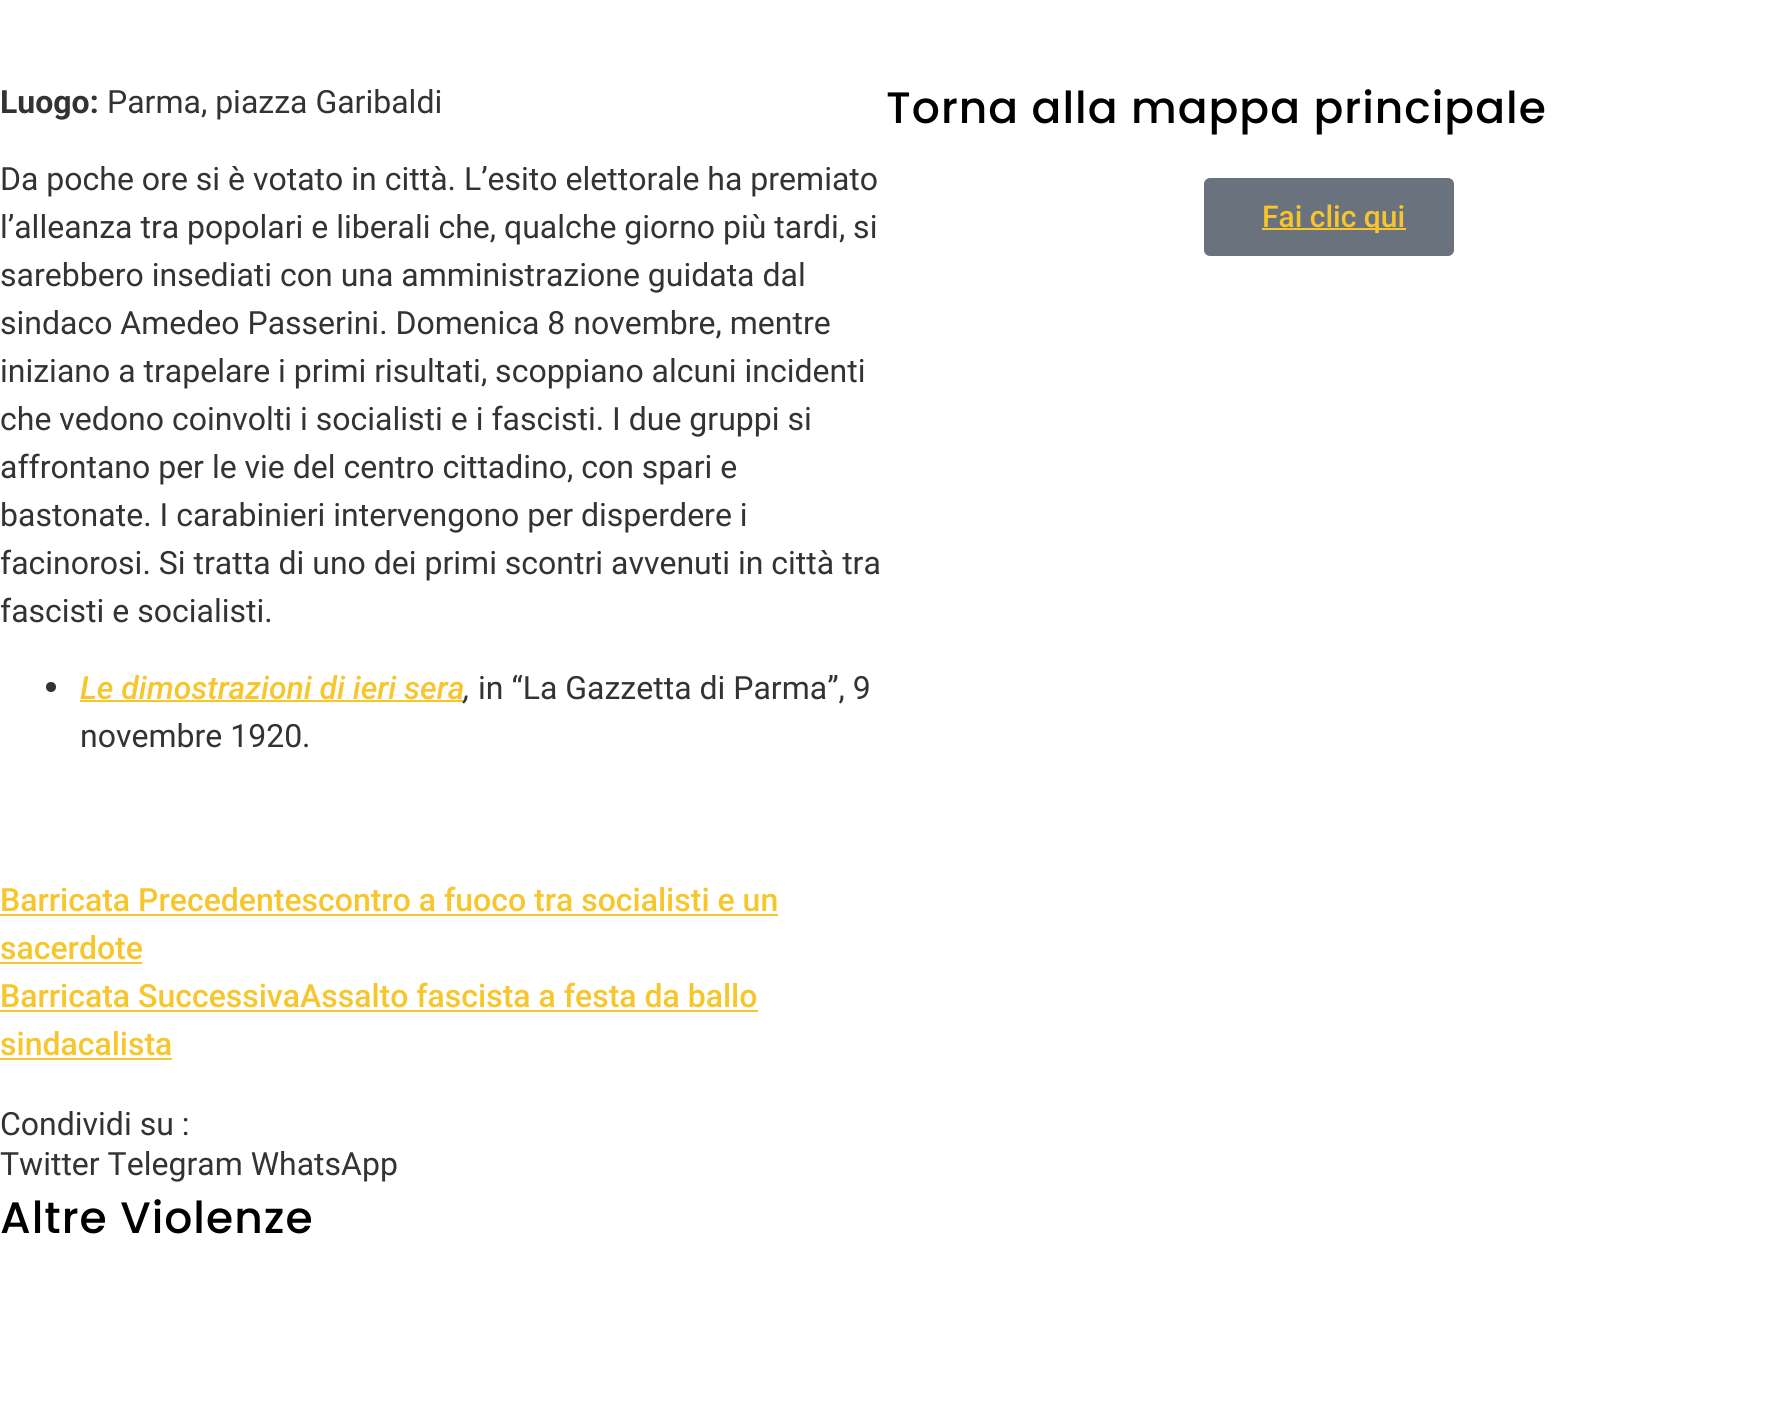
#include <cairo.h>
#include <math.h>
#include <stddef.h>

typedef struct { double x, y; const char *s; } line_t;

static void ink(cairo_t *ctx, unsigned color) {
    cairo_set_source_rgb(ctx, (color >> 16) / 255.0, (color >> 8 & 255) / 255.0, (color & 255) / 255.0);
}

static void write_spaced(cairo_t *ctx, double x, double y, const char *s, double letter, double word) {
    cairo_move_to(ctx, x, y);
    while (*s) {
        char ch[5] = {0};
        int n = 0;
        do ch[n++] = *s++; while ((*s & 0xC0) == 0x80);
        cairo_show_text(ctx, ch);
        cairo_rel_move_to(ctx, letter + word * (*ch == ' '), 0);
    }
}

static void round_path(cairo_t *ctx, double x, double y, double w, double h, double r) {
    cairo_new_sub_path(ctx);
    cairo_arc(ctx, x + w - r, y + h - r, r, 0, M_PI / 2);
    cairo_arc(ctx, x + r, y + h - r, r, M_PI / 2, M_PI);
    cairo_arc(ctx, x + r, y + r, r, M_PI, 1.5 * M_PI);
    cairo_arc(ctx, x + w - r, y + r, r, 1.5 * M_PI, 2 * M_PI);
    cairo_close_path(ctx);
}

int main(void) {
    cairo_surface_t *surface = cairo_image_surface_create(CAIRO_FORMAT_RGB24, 1772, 1419);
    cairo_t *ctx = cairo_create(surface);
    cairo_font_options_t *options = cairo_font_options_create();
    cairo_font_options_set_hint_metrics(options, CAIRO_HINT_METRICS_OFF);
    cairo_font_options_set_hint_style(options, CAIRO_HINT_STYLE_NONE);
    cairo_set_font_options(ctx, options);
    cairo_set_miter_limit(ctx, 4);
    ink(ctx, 0xFFFFFF);
    cairo_paint(ctx);
    cairo_select_font_face(ctx, "Roboto", CAIRO_FONT_SLANT_NORMAL, CAIRO_FONT_WEIGHT_BOLD);
    cairo_set_font_size(ctx, 32);
    ink(ctx, 0x333333);
    cairo_move_to(ctx, 0, 113);
    cairo_show_text(ctx, "Luogo:");
    cairo_select_font_face(ctx, "Roboto", CAIRO_FONT_SLANT_NORMAL, CAIRO_FONT_WEIGHT_NORMAL);
    {
        static const line_t items[] = {
            {107, 113, "Parma, piazza Garibaldi"},
            {0, 190, "Da poche ore si è votato in città. L’esito elettorale ha premiato"},
            {0, 238, "l’alleanza tra popolari e liberali che, qualche giorno più tardi, si"},
            {0, 286, "sarebbero insediati con una amministrazione guidata dal"},
            {0, 334, "sindaco Amedeo Passerini. Domenica 8 novembre, mentre"},
            {0, 382, "iniziano a trapelare i primi risultati, scoppiano alcuni incidenti"},
            {0, 430, "che vedono coinvolti i socialisti e i fascisti. I due gruppi si"},
            {0, 478, "affrontano per le vie del centro cittadino, con spari e"},
            {0, 526, "bastonate. I carabinieri intervengono per disperdere i"},
            {0, 574, "facinorosi. Si tratta di uno dei primi scontri avvenuti in città tra"},
            {0, 622, "fascisti e socialisti."},
        };
        for (size_t i = 0; i < sizeof items / sizeof *items; i++) {
            cairo_move_to(ctx, items[i].x, items[i].y);
            cairo_show_text(ctx, items[i].s);
        }
    }
    cairo_new_path(ctx);
    cairo_arc(ctx, 51, 687, 5, 0, 2 * M_PI);
    cairo_fill(ctx);
    cairo_select_font_face(ctx, "Roboto Medium", CAIRO_FONT_SLANT_ITALIC, CAIRO_FONT_WEIGHT_NORMAL);
    ink(ctx, 0xF7C52C);
    cairo_move_to(ctx, 80, 699);
    cairo_show_text(ctx, "Le dimostrazioni di ieri sera");
    cairo_select_font_face(ctx, "Roboto", CAIRO_FONT_SLANT_NORMAL, CAIRO_FONT_WEIGHT_NORMAL);
    ink(ctx, 0x333333);
    cairo_move_to(ctx, 478, 699);
    cairo_show_text(ctx, "in “La Gazzetta di Parma”, 9");
    ink(ctx, 0xF7C52C);
    cairo_rectangle(ctx, 80, 700, 384, 2);
    cairo_fill(ctx);
    cairo_select_font_face(ctx, "Roboto", CAIRO_FONT_SLANT_ITALIC, CAIRO_FONT_WEIGHT_NORMAL);
    ink(ctx, 0x333333);
    cairo_move_to(ctx, 464, 699);
    cairo_show_text(ctx, ",");
    cairo_select_font_face(ctx, "Roboto", CAIRO_FONT_SLANT_NORMAL, CAIRO_FONT_WEIGHT_NORMAL);
    cairo_move_to(ctx, 80, 747);
    cairo_show_text(ctx, "novembre 1920.");
    cairo_select_font_face(ctx, "Roboto Medium", CAIRO_FONT_SLANT_NORMAL, CAIRO_FONT_WEIGHT_NORMAL);
    ink(ctx, 0xF7C52C);
    cairo_move_to(ctx, 0, 911);
    cairo_show_text(ctx, "Barricata Precedentescontro a fuoco tra socialisti e un");
    cairo_rectangle(ctx, 0, 914, 778, 2);
    cairo_fill(ctx);
    cairo_move_to(ctx, 0, 959);
    cairo_show_text(ctx, "sacerdote");
    cairo_rectangle(ctx, 0, 962, 142, 2);
    cairo_fill(ctx);
    cairo_move_to(ctx, 0, 1007);
    cairo_show_text(ctx, "Barricata SuccessivaAssalto fascista a festa da ballo");
    cairo_rectangle(ctx, 0, 1010, 758, 2);
    cairo_fill(ctx);
    cairo_move_to(ctx, 0, 1055);
    cairo_show_text(ctx, "sindacalista");
    cairo_rectangle(ctx, 0, 1058, 172, 2);
    cairo_fill(ctx);
    cairo_select_font_face(ctx, "Roboto", CAIRO_FONT_SLANT_NORMAL, CAIRO_FONT_WEIGHT_NORMAL);
    ink(ctx, 0x333333);
    cairo_move_to(ctx, 0, 1135);
    cairo_show_text(ctx, "Condividi su :");
    cairo_move_to(ctx, 0, 1175);
    cairo_show_text(ctx, "Twitter Telegram WhatsApp");
    cairo_select_font_face(ctx, "Poppins Medium", CAIRO_FONT_SLANT_NORMAL, CAIRO_FONT_WEIGHT_NORMAL);
    cairo_set_font_size(ctx, 44);
    ink(ctx, 0x000000);
    write_spaced(ctx, 886, 123, "Torna alla mappa principale", 1, 0);
    ink(ctx, 0x69727D);
    round_path(ctx, 1204, 178, 250, 78, 6);
    cairo_fill(ctx);
    ink(ctx, 0xF7C52C);
    cairo_rectangle(ctx, 1262, 228, 144, 2);
    cairo_fill(ctx);
    cairo_select_font_face(ctx, "Roboto Medium", CAIRO_FONT_SLANT_NORMAL, CAIRO_FONT_WEIGHT_NORMAL);
    cairo_set_font_size(ctx, 30);
    cairo_move_to(ctx, 1262, 227);
    cairo_show_text(ctx, "Fai clic qui");
    cairo_select_font_face(ctx, "Poppins Medium", CAIRO_FONT_SLANT_NORMAL, CAIRO_FONT_WEIGHT_NORMAL);
    cairo_set_font_size(ctx, 44);
    ink(ctx, 0x000000);
    write_spaced(ctx, 0, 1233, "Altre Violenze", 1, 0);
    cairo_surface_write_to_png(surface, "image.png");
    cairo_font_options_destroy(options);
    cairo_destroy(ctx);
    cairo_surface_destroy(surface);
    return 0;
}
